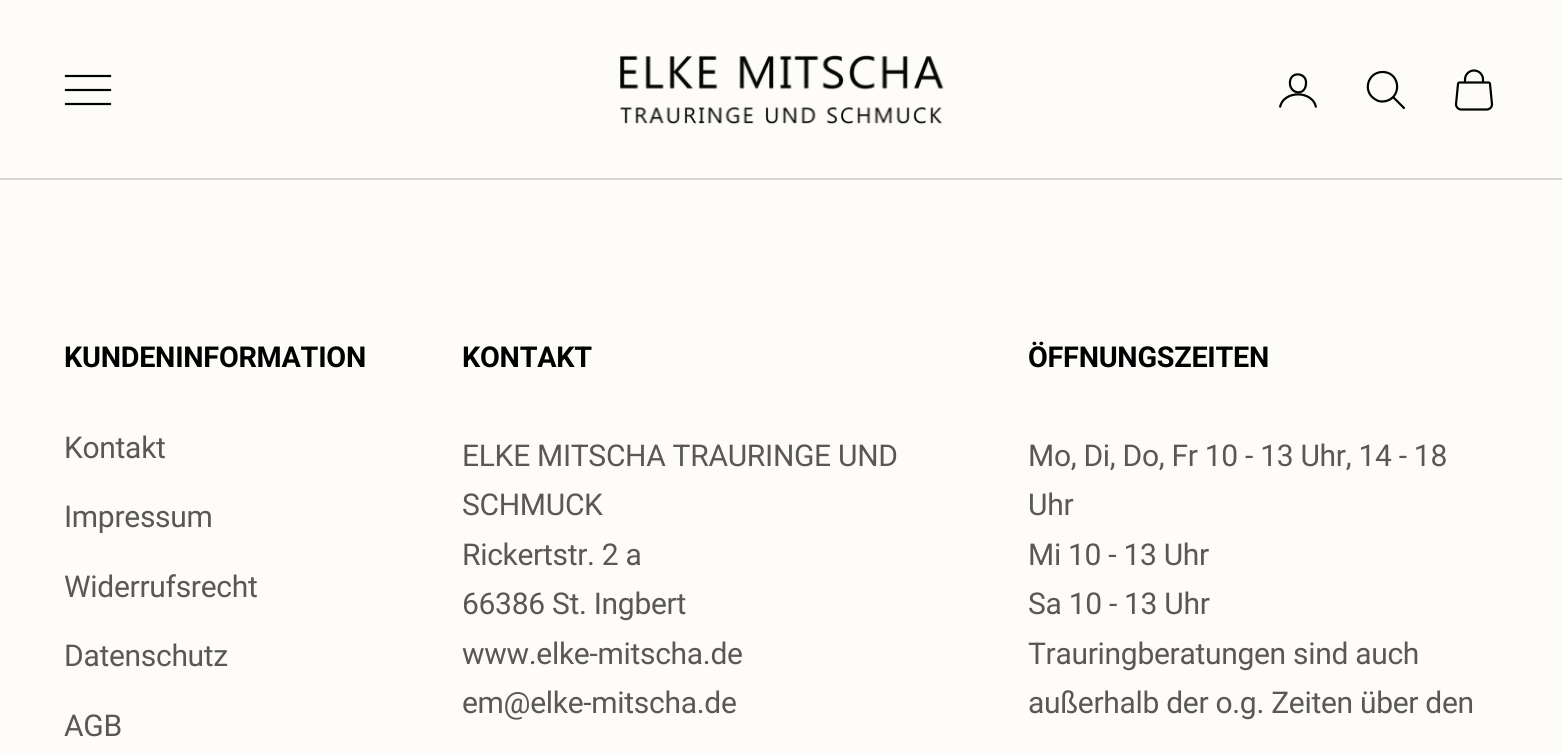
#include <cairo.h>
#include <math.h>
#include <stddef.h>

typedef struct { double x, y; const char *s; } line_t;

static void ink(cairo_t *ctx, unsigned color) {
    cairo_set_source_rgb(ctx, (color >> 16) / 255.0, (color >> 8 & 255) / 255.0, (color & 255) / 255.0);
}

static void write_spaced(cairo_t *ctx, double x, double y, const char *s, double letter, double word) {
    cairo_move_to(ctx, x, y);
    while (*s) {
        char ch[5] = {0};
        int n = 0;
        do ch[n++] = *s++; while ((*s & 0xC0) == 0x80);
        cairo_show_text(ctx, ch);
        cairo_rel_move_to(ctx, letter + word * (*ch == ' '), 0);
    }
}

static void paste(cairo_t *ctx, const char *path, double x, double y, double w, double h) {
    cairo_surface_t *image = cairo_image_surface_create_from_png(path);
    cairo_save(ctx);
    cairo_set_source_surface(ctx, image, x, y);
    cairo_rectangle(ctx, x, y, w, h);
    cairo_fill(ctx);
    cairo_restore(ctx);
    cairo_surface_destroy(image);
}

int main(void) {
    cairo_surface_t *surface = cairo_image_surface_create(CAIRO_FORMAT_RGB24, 1562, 754);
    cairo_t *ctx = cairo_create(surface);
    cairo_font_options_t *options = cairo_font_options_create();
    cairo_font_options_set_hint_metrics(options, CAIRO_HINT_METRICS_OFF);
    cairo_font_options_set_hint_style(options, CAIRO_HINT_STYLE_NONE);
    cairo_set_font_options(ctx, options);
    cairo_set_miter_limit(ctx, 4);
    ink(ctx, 0xFEFCF9);
    cairo_paint(ctx);
    ink(ctx, 0xD8D6D4);
    cairo_rectangle(ctx, 0, 178, 1562, 2);
    cairo_fill(ctx);
    cairo_new_path(ctx);
    cairo_move_to(ctx, 66, 104);
    cairo_line_to(ctx, 110, 104);
    cairo_move_to(ctx, 66, 90);
    cairo_line_to(ctx, 110, 90);
    cairo_move_to(ctx, 66, 76);
    cairo_line_to(ctx, 110, 76);
    ink(ctx, 0x000000);
    cairo_set_line_width(ctx, 2.2);
    cairo_set_line_cap(ctx, CAIRO_LINE_CAP_SQUARE);
    cairo_stroke(ctx);
    paste(ctx, "media/1.png", 620, 55, 324, 70);
    cairo_new_path(ctx);
    cairo_move_to(ctx, 1306, 83.5);
    cairo_curve_to(ctx, 1305.5, 97, 1288.5, 94, 1290, 81.5);
    cairo_curve_to(ctx, 1291, 71, 1307, 72.5, 1306, 83.5);
    cairo_close_path(ctx);
    cairo_set_line_cap(ctx, CAIRO_LINE_CAP_ROUND);
    cairo_set_line_join(ctx, CAIRO_LINE_JOIN_ROUND);
    cairo_stroke(ctx);
    cairo_new_path(ctx);
    cairo_move_to(ctx, 1280, 107.5);
    cairo_curve_to(ctx, 1283, 90, 1313, 90, 1316, 107.5);
    cairo_set_line_cap(ctx, CAIRO_LINE_CAP_BUTT);
    cairo_set_line_join(ctx, CAIRO_LINE_JOIN_MITER);
    cairo_stroke(ctx);
    cairo_new_path(ctx);
    cairo_move_to(ctx, 1382.5, 72);
    cairo_curve_to(ctx, 1367.5, 72, 1362, 92, 1375.5, 99.5);
    cairo_curve_to(ctx, 1377.5, 101, 1380, 101.5, 1382.5, 101.5);
    cairo_curve_to(ctx, 1402.5, 100.5, 1401.5, 72, 1382.5, 72);
    cairo_close_path(ctx);
    cairo_stroke(ctx);
    cairo_new_path(ctx);
    cairo_move_to(ctx, 1393.5, 97.5);
    cairo_line_to(ctx, 1404, 108);
    cairo_set_line_cap(ctx, CAIRO_LINE_CAP_ROUND);
    cairo_stroke(ctx);
    paste(ctx, "media/2.png", 1454, 69, 40, 42);
    cairo_select_font_face(ctx, "Roboto", CAIRO_FONT_SLANT_NORMAL, CAIRO_FONT_WEIGHT_BOLD);
    cairo_set_font_size(ctx, 28.75);
    write_spaced(ctx, 64, 367, "KUNDENINFORMATION", -0.25, 0);
    cairo_select_font_face(ctx, "Roboto", CAIRO_FONT_SLANT_NORMAL, CAIRO_FONT_WEIGHT_NORMAL);
    cairo_set_font_size(ctx, 30);
    ink(ctx, 0x595857);
    {
        static const line_t items[] = {
            {64, 458, "Kontakt"},
            {64, 527, "Impressum"},
            {64, 597, "Widerrufsrecht"},
            {64, 666, "Datenschutz"},
            {64, 736, "AGB"},
        };
        for (size_t i = 0; i < sizeof items / sizeof *items; i++) {
            write_spaced(ctx, items[i].x, items[i].y, items[i].s, -0.3, 0);
        }
    }
    cairo_select_font_face(ctx, "Roboto", CAIRO_FONT_SLANT_NORMAL, CAIRO_FONT_WEIGHT_BOLD);
    cairo_set_font_size(ctx, 28.75);
    ink(ctx, 0x000000);
    write_spaced(ctx, 462, 367, "KONTAKT", -0.25, 0);
    cairo_select_font_face(ctx, "Roboto", CAIRO_FONT_SLANT_NORMAL, CAIRO_FONT_WEIGHT_NORMAL);
    cairo_set_font_size(ctx, 30);
    ink(ctx, 0x595857);
    {
        static const line_t items[] = {
            {462, 466, "ELKE MITSCHA TRAURINGE UND"},
            {462, 515, "SCHMUCK"},
            {462, 565, "Rickertstr. 2 a"},
            {462, 614, "66386 St. Ingbert"},
            {462, 664, "www.elke-mitscha.de"},
            {462, 713, "em@elke-mitscha.de"},
        };
        for (size_t i = 0; i < sizeof items / sizeof *items; i++) {
            write_spaced(ctx, items[i].x, items[i].y, items[i].s, -0.3, 0);
        }
    }
    cairo_select_font_face(ctx, "Roboto", CAIRO_FONT_SLANT_NORMAL, CAIRO_FONT_WEIGHT_BOLD);
    cairo_set_font_size(ctx, 28.75);
    ink(ctx, 0x000000);
    write_spaced(ctx, 1028, 367, "ÖFFNUNGSZEITEN", -0.25, 0);
    cairo_select_font_face(ctx, "Roboto", CAIRO_FONT_SLANT_NORMAL, CAIRO_FONT_WEIGHT_NORMAL);
    cairo_set_font_size(ctx, 30);
    ink(ctx, 0x595857);
    {
        static const line_t items[] = {
            {1028, 466, "Mo, Di, Do, Fr 10 - 13 Uhr, 14 - 18"},
            {1028, 515, "Uhr"},
            {1028, 565, "Mi 10 - 13 Uhr"},
            {1028, 614, "Sa 10 - 13 Uhr"},
            {1028, 664, "Trauringberatungen sind auch"},
            {1028, 713, "außerhalb der o.g. Zeiten über den"},
        };
        for (size_t i = 0; i < sizeof items / sizeof *items; i++) {
            write_spaced(ctx, items[i].x, items[i].y, items[i].s, -0.3, 0);
        }
    }
    cairo_surface_write_to_png(surface, "image.png");
    cairo_font_options_destroy(options);
    cairo_destroy(ctx);
    cairo_surface_destroy(surface);
    return 0;
}
